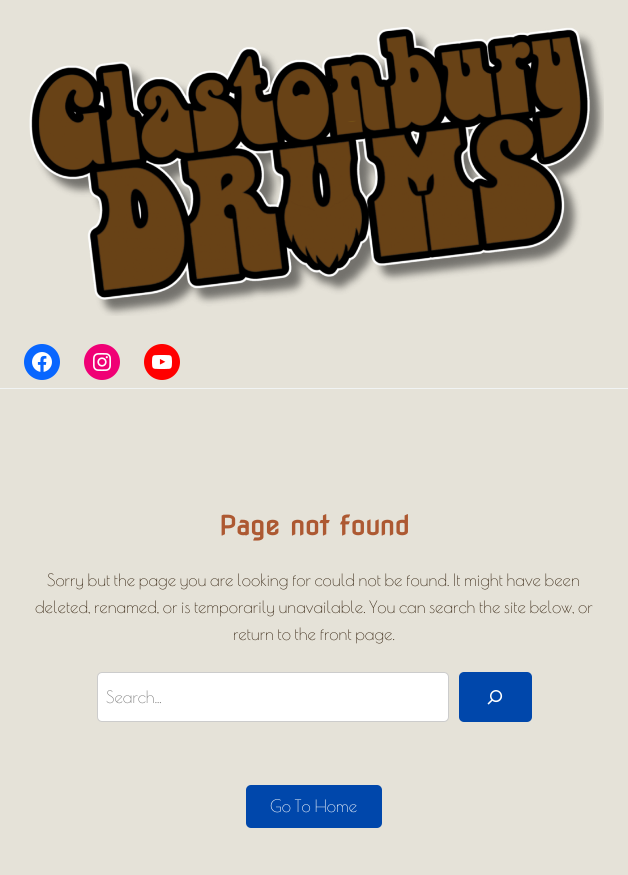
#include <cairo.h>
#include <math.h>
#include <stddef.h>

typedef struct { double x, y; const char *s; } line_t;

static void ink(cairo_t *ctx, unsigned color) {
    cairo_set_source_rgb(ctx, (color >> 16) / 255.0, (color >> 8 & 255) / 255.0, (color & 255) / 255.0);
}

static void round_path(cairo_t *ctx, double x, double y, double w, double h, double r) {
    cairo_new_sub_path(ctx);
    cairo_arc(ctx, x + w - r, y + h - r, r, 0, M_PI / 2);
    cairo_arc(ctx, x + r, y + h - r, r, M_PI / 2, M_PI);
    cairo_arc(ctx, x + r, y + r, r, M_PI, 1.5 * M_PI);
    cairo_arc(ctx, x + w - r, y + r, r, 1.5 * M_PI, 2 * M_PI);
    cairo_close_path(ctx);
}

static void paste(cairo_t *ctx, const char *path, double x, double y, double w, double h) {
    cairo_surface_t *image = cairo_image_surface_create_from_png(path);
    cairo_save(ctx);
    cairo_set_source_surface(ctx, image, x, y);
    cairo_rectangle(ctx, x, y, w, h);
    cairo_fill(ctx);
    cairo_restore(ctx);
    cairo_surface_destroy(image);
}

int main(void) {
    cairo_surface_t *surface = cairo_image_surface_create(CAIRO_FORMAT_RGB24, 628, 875);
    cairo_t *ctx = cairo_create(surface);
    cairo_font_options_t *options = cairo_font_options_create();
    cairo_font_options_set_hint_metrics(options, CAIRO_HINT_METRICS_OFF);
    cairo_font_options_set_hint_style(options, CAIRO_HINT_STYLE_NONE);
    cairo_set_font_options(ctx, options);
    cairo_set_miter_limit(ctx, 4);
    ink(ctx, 0xE5E2D8);
    cairo_paint(ctx);
    ink(ctx, 0xF1F4F4);
    cairo_rectangle(ctx, 0, 388, 628, 1);
    cairo_fill(ctx);
    paste(ctx, "media/1.png", 29, 27, 575, 289);
    ink(ctx, 0x0866FF);
    cairo_arc(ctx, 42, 362, 18, 0, 2 * M_PI);
    cairo_fill(ctx);
    paste(ctx, "media/2.png", 32, 352, 20, 20);
    ink(ctx, 0xF00075);
    cairo_arc(ctx, 102, 362, 18, 0, 2 * M_PI);
    cairo_fill(ctx);
    paste(ctx, "media/3.png", 93, 353, 18, 18);
    ink(ctx, 0xFF0000);
    cairo_arc(ctx, 162, 362, 18, 0, 2 * M_PI);
    cairo_fill(ctx);
    paste(ctx, "media/4.png", 152, 355, 20, 14);
    cairo_select_font_face(ctx, "Nova Flat", CAIRO_FONT_SLANT_NORMAL, CAIRO_FONT_WEIGHT_BOLD);
    cairo_set_font_size(ctx, 26.5);
    ink(ctx, 0xAD5932);
    cairo_move_to(ctx, 219, 535);
    cairo_show_text(ctx, "Page not found");
    cairo_select_font_face(ctx, "Poiret One", CAIRO_FONT_SLANT_NORMAL, CAIRO_FONT_WEIGHT_NORMAL);
    cairo_set_font_size(ctx, 16.75);
    ink(ctx, 0x382714);
    {
        static const line_t items[] = {
            {47, 586, "Sorry but the page you are looking for could not be found. It might have been"},
            {35, 613, "deleted, renamed, or is temporarily unavailable. You can search the site below, or"},
            {233, 640, "return to the front page."},
        };
        for (size_t i = 0; i < sizeof items / sizeof *items; i++) {
            cairo_move_to(ctx, items[i].x, items[i].y);
            cairo_show_text(ctx, items[i].s);
        }
    }
    ink(ctx, 0xFFFFFF);
    round_path(ctx, 97.5, 672.5, 351, 49, 4.5);
    cairo_fill_preserve(ctx);
    ink(ctx, 0xCCCCCC);
    cairo_set_line_width(ctx, 1);
    cairo_stroke(ctx);
    ink(ctx, 0x757575);
    cairo_move_to(ctx, 106, 703);
    cairo_show_text(ctx, "Search...");
    ink(ctx, 0x0047AB);
    round_path(ctx, 459, 672, 73, 50, 5);
    cairo_fill(ctx);
    paste(ctx, "media/5.png", 487, 690, 16, 15);
    round_path(ctx, 246, 785, 136, 43, 5);
    cairo_fill(ctx);
    ink(ctx, 0xFFFFFF);
    cairo_move_to(ctx, 270, 812);
    cairo_show_text(ctx, "Go To Home");
    cairo_surface_write_to_png(surface, "image.png");
    cairo_font_options_destroy(options);
    cairo_destroy(ctx);
    cairo_surface_destroy(surface);
    return 0;
}
